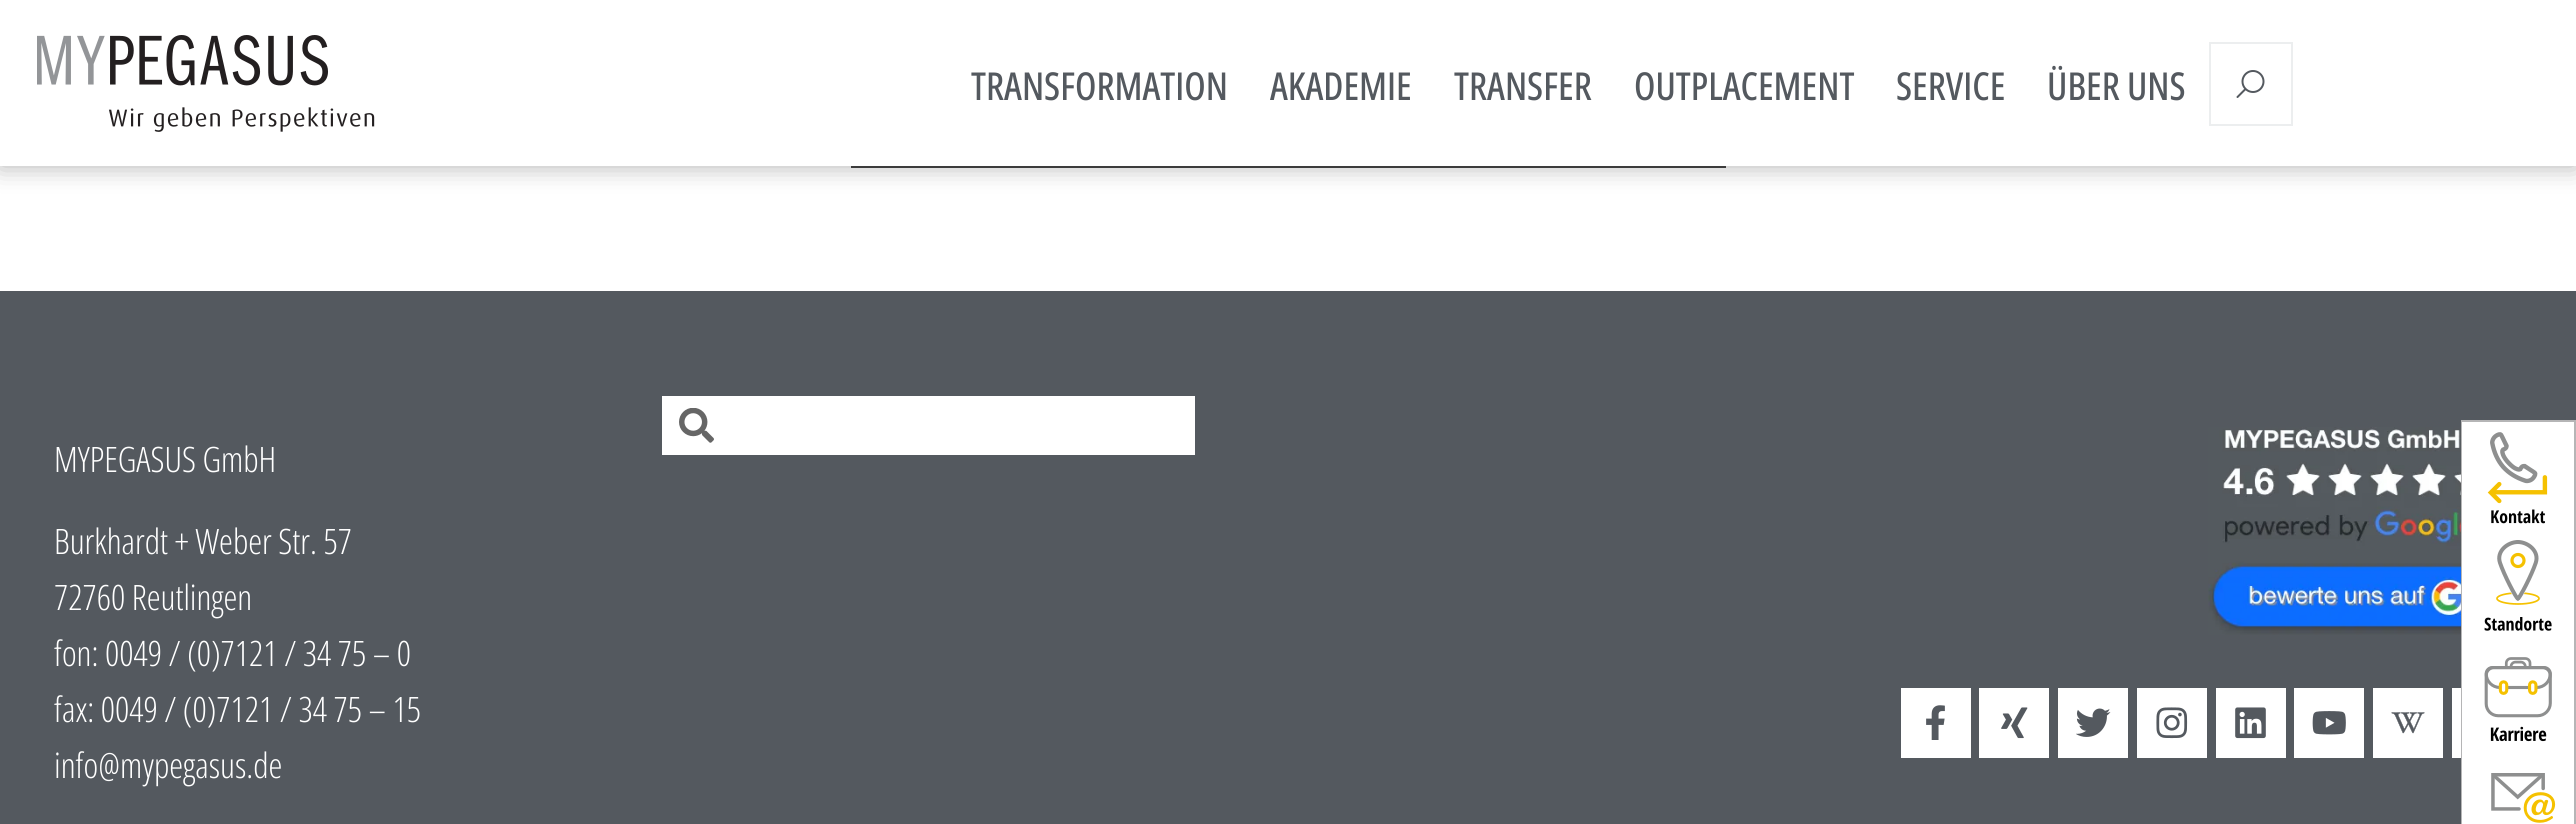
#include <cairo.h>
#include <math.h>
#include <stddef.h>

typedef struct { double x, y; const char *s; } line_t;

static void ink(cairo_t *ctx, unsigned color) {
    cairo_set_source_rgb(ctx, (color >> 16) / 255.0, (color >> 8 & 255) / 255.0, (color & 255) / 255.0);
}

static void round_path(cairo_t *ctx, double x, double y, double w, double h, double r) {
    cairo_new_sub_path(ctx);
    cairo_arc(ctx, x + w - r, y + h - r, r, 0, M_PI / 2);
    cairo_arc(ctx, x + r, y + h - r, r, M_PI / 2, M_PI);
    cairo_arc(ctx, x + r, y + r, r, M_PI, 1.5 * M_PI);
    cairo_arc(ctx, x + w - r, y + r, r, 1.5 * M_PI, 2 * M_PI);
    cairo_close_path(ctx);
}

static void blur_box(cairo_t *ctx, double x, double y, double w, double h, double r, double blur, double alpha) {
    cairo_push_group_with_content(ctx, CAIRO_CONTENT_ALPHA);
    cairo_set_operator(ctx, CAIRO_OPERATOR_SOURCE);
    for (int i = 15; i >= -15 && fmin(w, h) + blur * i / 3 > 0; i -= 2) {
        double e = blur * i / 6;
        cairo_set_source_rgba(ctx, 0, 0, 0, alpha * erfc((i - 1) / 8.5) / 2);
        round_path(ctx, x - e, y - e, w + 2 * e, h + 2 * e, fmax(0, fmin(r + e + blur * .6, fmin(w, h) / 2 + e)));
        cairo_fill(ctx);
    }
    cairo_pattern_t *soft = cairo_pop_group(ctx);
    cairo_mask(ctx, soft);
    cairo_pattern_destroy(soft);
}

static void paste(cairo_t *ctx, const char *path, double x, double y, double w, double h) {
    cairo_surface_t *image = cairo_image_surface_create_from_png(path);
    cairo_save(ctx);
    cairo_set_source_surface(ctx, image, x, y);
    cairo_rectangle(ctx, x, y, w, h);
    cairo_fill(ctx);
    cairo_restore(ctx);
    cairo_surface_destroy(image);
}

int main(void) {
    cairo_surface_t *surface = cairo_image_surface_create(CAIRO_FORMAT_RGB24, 2576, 824);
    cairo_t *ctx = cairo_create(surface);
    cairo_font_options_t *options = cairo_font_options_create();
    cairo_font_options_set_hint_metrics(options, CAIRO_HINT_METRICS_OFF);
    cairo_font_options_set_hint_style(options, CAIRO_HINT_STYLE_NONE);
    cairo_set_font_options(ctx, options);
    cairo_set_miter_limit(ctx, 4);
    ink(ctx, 0xFFFFFF);
    cairo_paint(ctx);
    cairo_rectangle(ctx, 852, 82, 873, 85);
    ink(ctx, 0x474747);
    cairo_stroke(ctx);
    ink(ctx, 0x000000);
    blur_box(ctx, 0, 0, 2576, 166, 0, 13, 0.31);
    ink(ctx, 0xFFFFFF);
    cairo_rectangle(ctx, 0, 0, 2576, 166);
    cairo_fill(ctx);
    paste(ctx, "media/1.png", 37, 35, 338, 97);
    cairo_select_font_face(ctx, "Open Sans Condensed Medium", CAIRO_FONT_SLANT_NORMAL, CAIRO_FONT_WEIGHT_NORMAL);
    cairo_set_font_size(ctx, 38.5);
    ink(ctx, 0x54595F);
    {
        static const line_t items[] = {
            {971, 100, "TRANSFORMATION"},
            {1270, 100, "AKADEMIE"},
            {1454, 100, "TRANSFER"},
            {1634, 100, "OUTPLACEMENT"},
            {1896, 100, "SERVICE"},
            {2047, 100, "ÜBER UNS"},
        };
        for (size_t i = 0; i < sizeof items / sizeof *items; i++) {
            cairo_move_to(ctx, items[i].x, items[i].y);
            cairo_show_text(ctx, items[i].s);
        }
    }
    cairo_rectangle(ctx, 2210, 43, 82, 82);
    ink(ctx, 0xECEEEF);
    cairo_stroke(ctx);
    paste(ctx, "media/2.png", 2236, 70, 29, 28);
    ink(ctx, 0x54595F);
    cairo_rectangle(ctx, 0, 291, 2576, 533);
    cairo_fill(ctx);
    cairo_select_font_face(ctx, "Open Sans Condensed Light", CAIRO_FONT_SLANT_NORMAL, CAIRO_FONT_WEIGHT_NORMAL);
    cairo_set_font_size(ctx, 35);
    ink(ctx, 0xFFFFFF);
    {
        static const line_t items[] = {
            {54, 472, "MYPEGASUS GmbH"},
            {54, 554, "Burkhardt + Weber Str. 57"},
            {54, 610, "72760 Reutlingen"},
            {54, 666, "fon: 0049 / (0)7121 / 34 75 – 0"},
            {54, 722, "fax: 0049 / (0)7121 / 34 75 – 15"},
            {54, 778, "info@mypegasus.de"},
        };
        for (size_t i = 0; i < sizeof items / sizeof *items; i++) {
            cairo_move_to(ctx, items[i].x, items[i].y);
            cairo_show_text(ctx, items[i].s);
        }
    }
    cairo_rectangle(ctx, 662, 396, 533, 59);
    cairo_fill(ctx);
    paste(ctx, "media/3.png", 679, 408, 35, 35);
    paste(ctx, "media/4.png", 2208, 427, 253, 208);
    cairo_rectangle(ctx, 1901, 688, 70, 70);
    cairo_fill(ctx);
    paste(ctx, "media/5.png", 1926, 705, 19, 35);
    cairo_rectangle(ctx, 1979, 688, 70, 70);
    cairo_fill(ctx);
    paste(ctx, "media/6.png", 2001, 707, 27, 32);
    cairo_rectangle(ctx, 2058, 688, 70, 70);
    cairo_fill(ctx);
    paste(ctx, "media/7.png", 2076, 708, 35, 29);
    cairo_rectangle(ctx, 2137, 688, 70, 70);
    cairo_fill(ctx);
    paste(ctx, "media/8.png", 2156, 707, 32, 32);
    cairo_rectangle(ctx, 2216, 688, 70, 70);
    cairo_fill(ctx);
    paste(ctx, "media/9.png", 2235, 707, 31, 32);
    cairo_rectangle(ctx, 2294, 688, 70, 70);
    cairo_fill(ctx);
    paste(ctx, "media/10.png", 2312, 711, 34, 24);
    cairo_rectangle(ctx, 2373, 688, 70, 70);
    cairo_fill(ctx);
    paste(ctx, "media/11.png", 2391, 712, 34, 22);
    cairo_rectangle(ctx, 2452, 688, 9, 70);
    cairo_fill(ctx);
    cairo_rectangle(ctx, 2462, 421, 113, 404);
    ink(ctx, 0xB5B5B6);
    cairo_stroke(ctx);
    paste(ctx, "media/12.png", 2462, 422, 112, 111);
    paste(ctx, "media/13.png", 2462, 533, 112, 111);
    paste(ctx, "media/14.png", 2462, 644, 112, 110);
    paste(ctx, "media/15.png", 2462, 754, 112, 70);
    cairo_surface_write_to_png(surface, "image.png");
    cairo_font_options_destroy(options);
    cairo_destroy(ctx);
    cairo_surface_destroy(surface);
    return 0;
}
